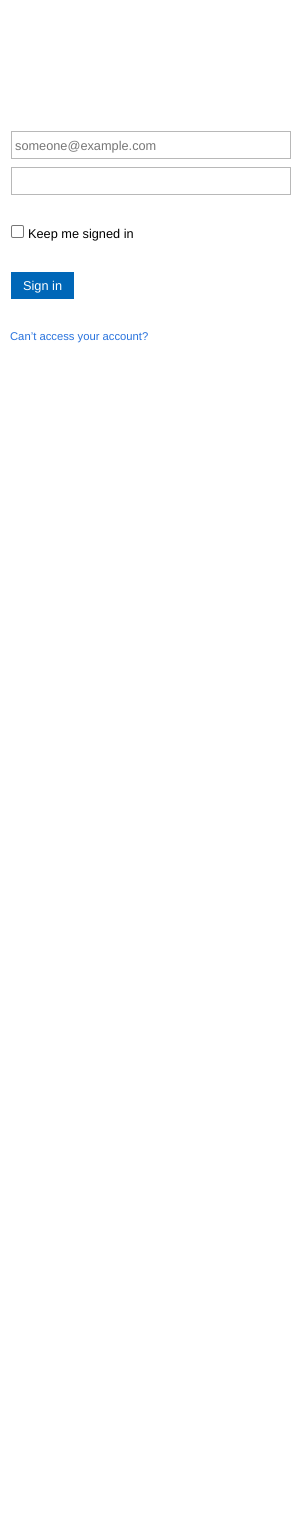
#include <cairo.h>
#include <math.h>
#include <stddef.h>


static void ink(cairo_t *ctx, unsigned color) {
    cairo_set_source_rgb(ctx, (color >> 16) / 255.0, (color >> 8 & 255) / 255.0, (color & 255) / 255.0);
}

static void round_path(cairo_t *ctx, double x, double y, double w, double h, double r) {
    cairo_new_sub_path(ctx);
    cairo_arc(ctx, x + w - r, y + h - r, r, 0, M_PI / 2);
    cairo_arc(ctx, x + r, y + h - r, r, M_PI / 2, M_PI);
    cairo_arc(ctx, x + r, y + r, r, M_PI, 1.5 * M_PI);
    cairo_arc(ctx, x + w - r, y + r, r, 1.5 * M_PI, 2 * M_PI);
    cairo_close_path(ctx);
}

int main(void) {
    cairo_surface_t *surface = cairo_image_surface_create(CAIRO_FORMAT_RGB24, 305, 1514);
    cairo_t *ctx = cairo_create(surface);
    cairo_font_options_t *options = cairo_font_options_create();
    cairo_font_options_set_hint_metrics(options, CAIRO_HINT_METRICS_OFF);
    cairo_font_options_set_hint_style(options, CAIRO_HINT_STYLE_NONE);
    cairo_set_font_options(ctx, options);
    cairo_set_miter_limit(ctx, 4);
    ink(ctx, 0xFFFFFF);
    cairo_paint(ctx);
    cairo_rectangle(ctx, 11.5, 131.5, 279, 27);
    ink(ctx, 0xB8B8B8);
    cairo_set_line_width(ctx, 1);
    cairo_stroke(ctx);
    cairo_select_font_face(ctx, "Liberation Sans", CAIRO_FONT_SLANT_NORMAL, CAIRO_FONT_WEIGHT_NORMAL);
    cairo_set_font_size(ctx, 12.75);
    ink(ctx, 0x767676);
    cairo_move_to(ctx, 15, 150);
    cairo_show_text(ctx, "someone@example.com");
    cairo_rectangle(ctx, 11.5, 167.5, 279, 27);
    ink(ctx, 0xB8B8B8);
    cairo_stroke(ctx);
    round_path(ctx, 11.5, 225.5, 12, 12, 1.5);
    ink(ctx, 0x767676);
    cairo_stroke(ctx);
    ink(ctx, 0x000000);
    cairo_move_to(ctx, 28, 238);
    cairo_show_text(ctx, "Keep me signed in");
    ink(ctx, 0x0067B8);
    cairo_rectangle(ctx, 11, 272, 63, 27);
    cairo_fill(ctx);
    ink(ctx, 0xFFFFFF);
    cairo_move_to(ctx, 23, 290);
    cairo_show_text(ctx, "Sign in");
    cairo_set_font_size(ctx, 11.25);
    ink(ctx, 0x2872DD);
    cairo_move_to(ctx, 10, 340);
    cairo_show_text(ctx, "Can’t access your account?");
    cairo_surface_write_to_png(surface, "image.png");
    cairo_font_options_destroy(options);
    cairo_destroy(ctx);
    cairo_surface_destroy(surface);
    return 0;
}
